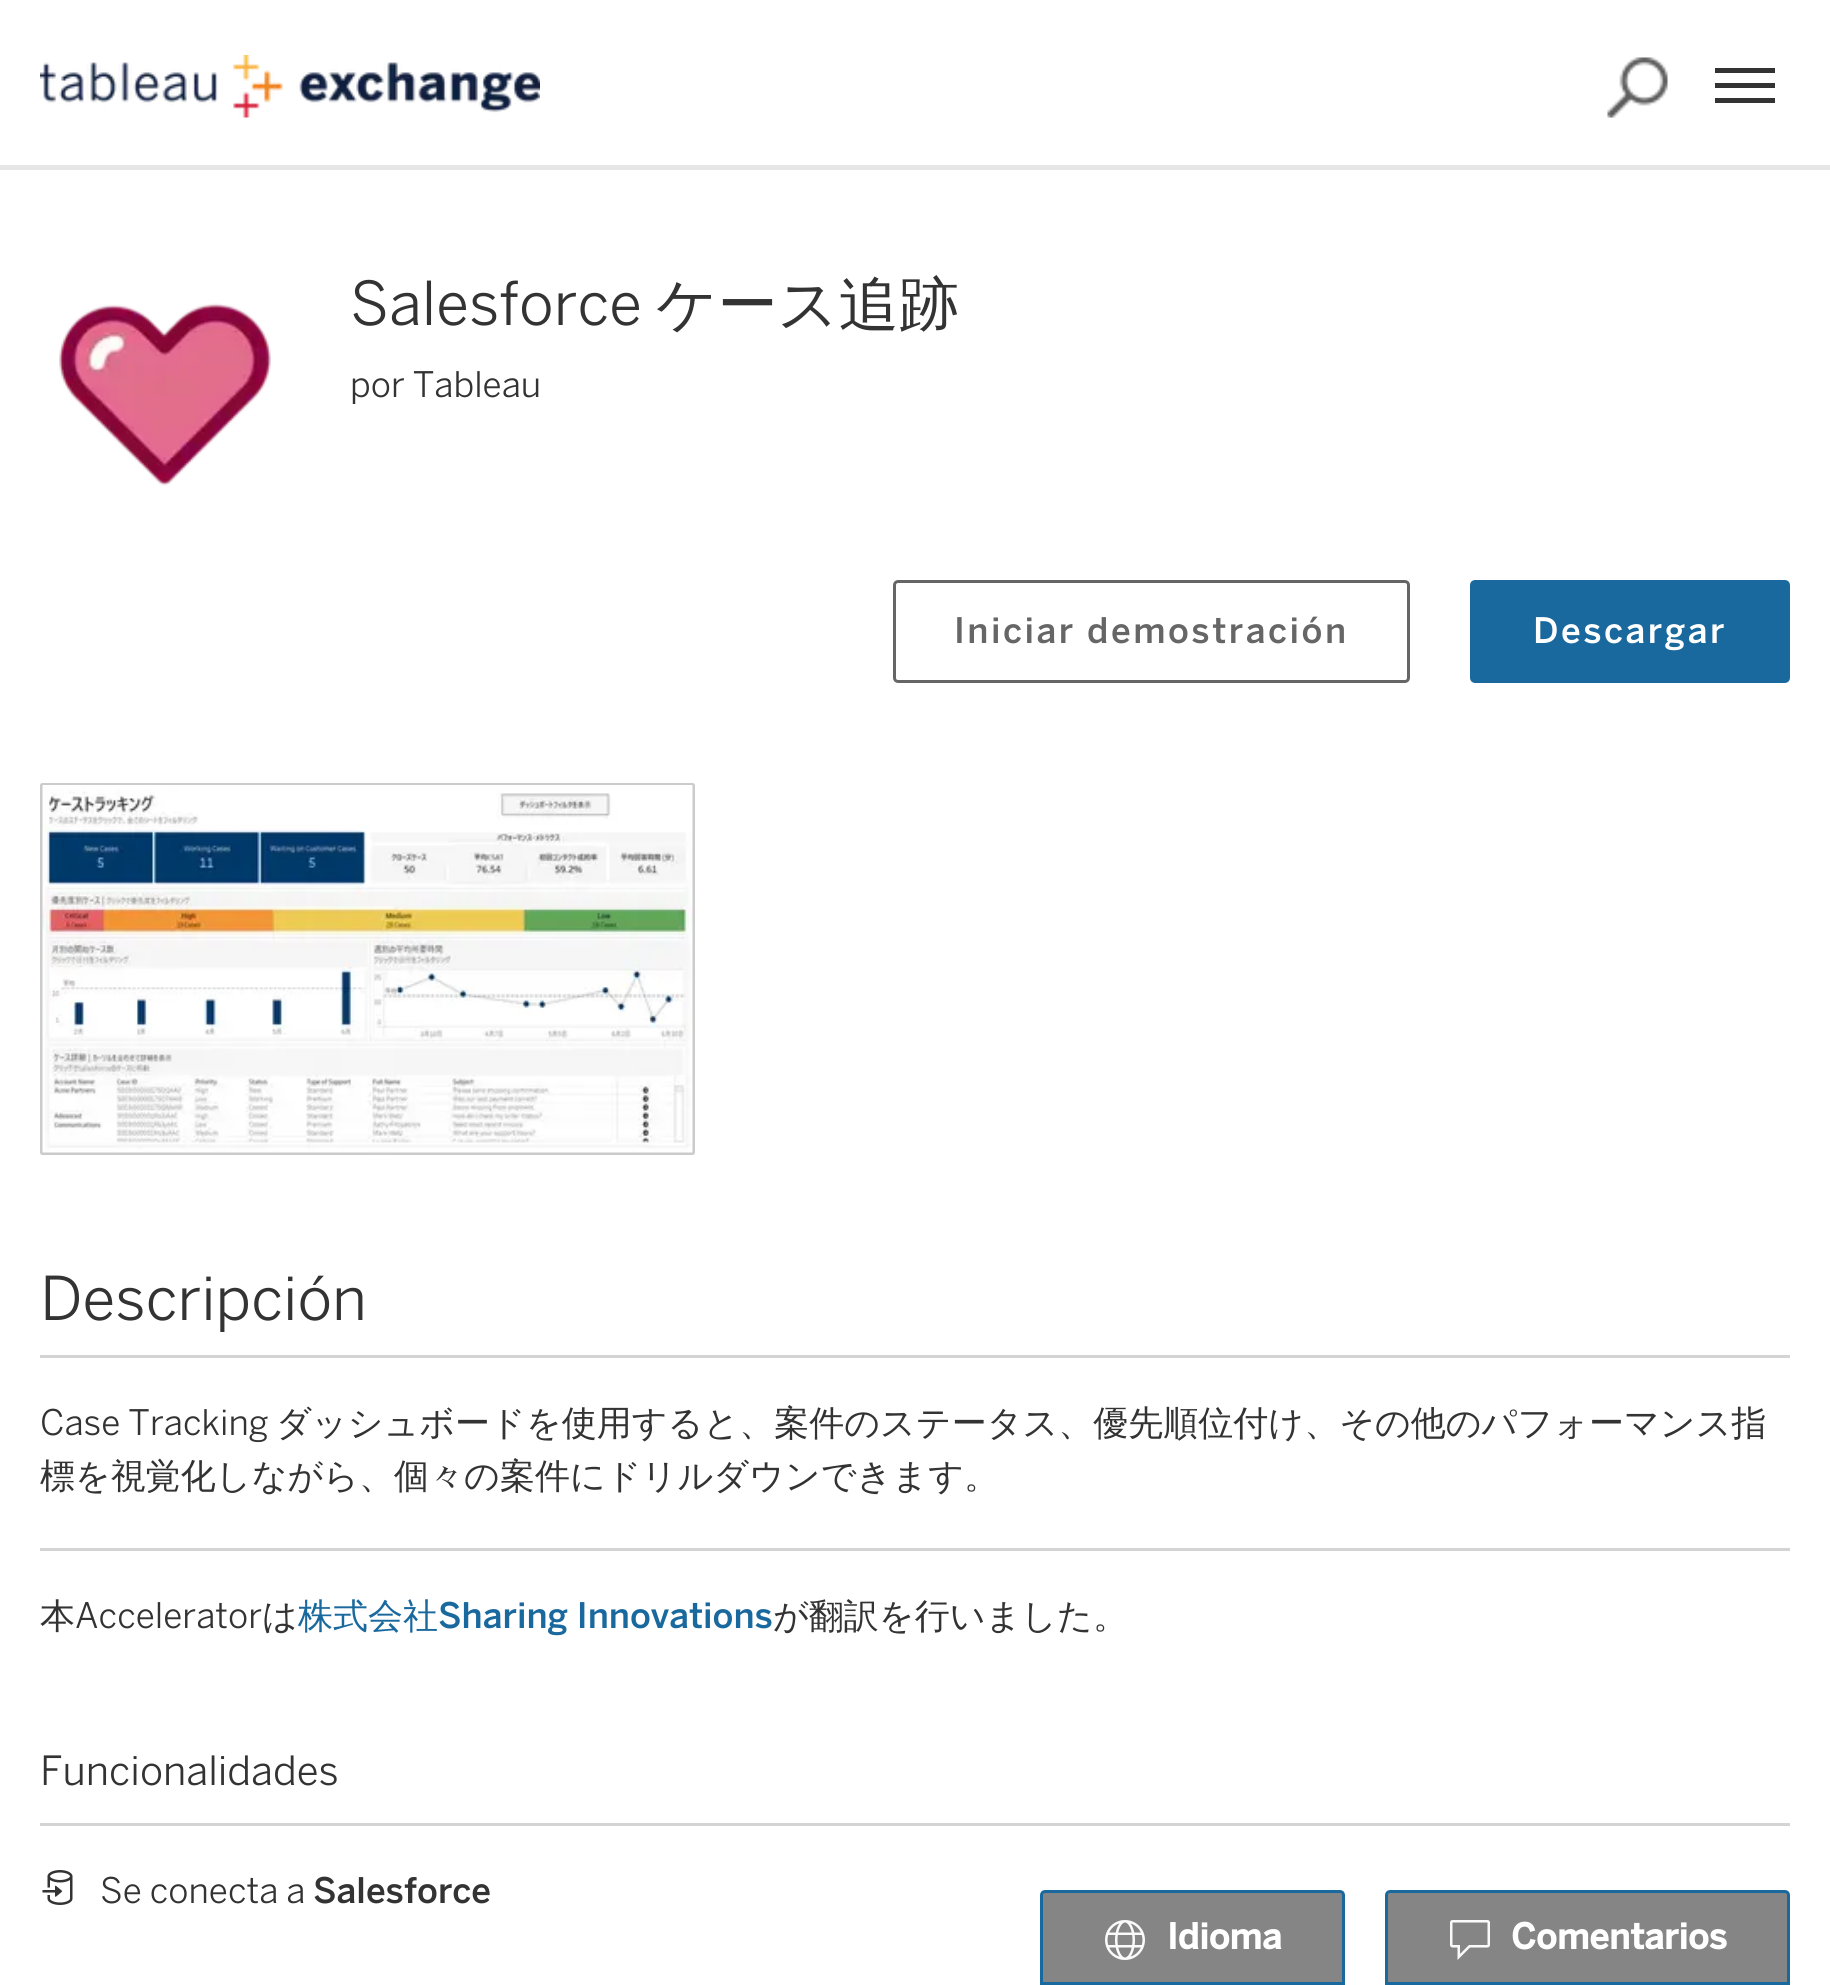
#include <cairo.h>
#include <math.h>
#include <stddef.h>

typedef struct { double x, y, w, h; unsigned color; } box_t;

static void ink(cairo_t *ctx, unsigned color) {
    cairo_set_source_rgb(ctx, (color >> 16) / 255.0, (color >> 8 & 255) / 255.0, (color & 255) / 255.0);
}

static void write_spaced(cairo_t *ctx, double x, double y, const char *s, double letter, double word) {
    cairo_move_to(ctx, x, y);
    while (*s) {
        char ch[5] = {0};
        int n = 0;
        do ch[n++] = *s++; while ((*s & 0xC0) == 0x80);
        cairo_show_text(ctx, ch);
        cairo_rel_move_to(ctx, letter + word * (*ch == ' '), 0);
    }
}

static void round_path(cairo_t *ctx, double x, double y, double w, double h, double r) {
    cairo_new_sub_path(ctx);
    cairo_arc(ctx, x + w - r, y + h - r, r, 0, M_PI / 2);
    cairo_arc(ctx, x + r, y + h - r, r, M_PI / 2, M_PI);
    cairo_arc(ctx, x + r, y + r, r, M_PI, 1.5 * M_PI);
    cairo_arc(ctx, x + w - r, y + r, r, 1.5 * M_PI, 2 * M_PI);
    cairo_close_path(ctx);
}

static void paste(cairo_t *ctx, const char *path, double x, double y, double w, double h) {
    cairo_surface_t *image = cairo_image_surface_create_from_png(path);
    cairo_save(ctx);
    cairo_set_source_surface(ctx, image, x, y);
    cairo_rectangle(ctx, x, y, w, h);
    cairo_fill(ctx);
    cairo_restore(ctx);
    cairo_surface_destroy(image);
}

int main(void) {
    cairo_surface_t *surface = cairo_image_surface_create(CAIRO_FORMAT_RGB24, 1830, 1985);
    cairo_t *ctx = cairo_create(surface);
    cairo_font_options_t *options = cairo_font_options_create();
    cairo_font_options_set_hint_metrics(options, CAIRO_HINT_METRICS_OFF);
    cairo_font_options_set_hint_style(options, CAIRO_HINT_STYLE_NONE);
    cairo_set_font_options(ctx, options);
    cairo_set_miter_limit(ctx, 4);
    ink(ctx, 0xFFFFFF);
    cairo_paint(ctx);
    ink(ctx, 0xE6E6E6);
    cairo_rectangle(ctx, 0, 165, 1830, 5);
    cairo_fill(ctx);
    paste(ctx, "media/1.png", 40, 55, 500, 63);
    paste(ctx, "media/2.png", 1607, 57, 61, 61);
    {
        static const box_t items[] = {
            {1715, 83, 60, 5, 0x333333},
            {1715, 68, 60, 5, 0x333333},
            {1715, 98, 60, 5, 0x333333},
        };
        for (size_t i = 0; i < sizeof items / sizeof *items; i++) {
            ink(ctx, items[i].color);
            cairo_rectangle(ctx, items[i].x, items[i].y, items[i].w, items[i].h);
            cairo_fill(ctx);
        }
    }
    paste(ctx, "media/3.png", 59, 303, 212, 183);
    cairo_select_font_face(ctx, "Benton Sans", CAIRO_FONT_SLANT_NORMAL, CAIRO_FONT_WEIGHT_NORMAL);
    cairo_set_font_size(ctx, 60);
    cairo_move_to(ctx, 350, 325);
    cairo_show_text(ctx, "Salesforce");
    cairo_select_font_face(ctx, "WenQuanYi Zen Hei Medium", CAIRO_FONT_SLANT_NORMAL, CAIRO_FONT_WEIGHT_NORMAL);
    cairo_move_to(ctx, 656, 325);
    cairo_show_text(ctx, "ケース追跡");
    cairo_select_font_face(ctx, "Benton Sans", CAIRO_FONT_SLANT_NORMAL, CAIRO_FONT_WEIGHT_NORMAL);
    cairo_set_font_size(ctx, 35);
    cairo_move_to(ctx, 350, 397);
    cairo_show_text(ctx, "por Tableau");
    round_path(ctx, 894.5, 581.5, 514, 100, 3.5);
    ink(ctx, 0x666666);
    cairo_set_line_width(ctx, 3);
    cairo_stroke(ctx);
    cairo_select_font_face(ctx, "Benton Sans Medium", CAIRO_FONT_SLANT_NORMAL, CAIRO_FONT_WEIGHT_NORMAL);
    write_spaced(ctx, 954, 643, "Iniciar demostración", 2.5, 0);
    ink(ctx, 0x1A699E);
    round_path(ctx, 1471.5, 581.5, 317, 100, 3.5);
    cairo_fill_preserve(ctx);
    cairo_stroke(ctx);
    ink(ctx, 0xFFFFFF);
    write_spaced(ctx, 1533, 643, "Descargar", 2.5, 0);
    round_path(ctx, 41.5, 784.5, 652, 369, 1);
    ink(ctx, 0xCBCBCB);
    cairo_stroke(ctx);
    paste(ctx, "media/4.png", 42, 785, 651, 368);
    ink(ctx, 0xD4D4D4);
    cairo_rectangle(ctx, 40, 1355, 1750, 3);
    cairo_fill(ctx);
    cairo_select_font_face(ctx, "Benton Sans", CAIRO_FONT_SLANT_NORMAL, CAIRO_FONT_WEIGHT_NORMAL);
    cairo_set_font_size(ctx, 60);
    ink(ctx, 0x333333);
    cairo_move_to(ctx, 40, 1320);
    cairo_show_text(ctx, "Descripción");
    cairo_set_font_size(ctx, 35);
    cairo_move_to(ctx, 40, 1435);
    cairo_show_text(ctx, "Case Tracking");
    cairo_select_font_face(ctx, "WenQuanYi Zen Hei Medium", CAIRO_FONT_SLANT_NORMAL, CAIRO_FONT_WEIGHT_NORMAL);
    cairo_move_to(ctx, 276, 1435);
    cairo_show_text(ctx, "ダッシュボードを使用すると、案件のステータス、優先順位付け、その他のパフォーマンス指");
    cairo_move_to(ctx, 40, 1488);
    cairo_show_text(ctx, "標を視覚化しながら、個々の案件にドリルダウンできます。");
    ink(ctx, 0xD4D4D4);
    cairo_rectangle(ctx, 40, 1548, 1750, 3);
    cairo_fill(ctx);
    ink(ctx, 0x333333);
    cairo_move_to(ctx, 40, 1628);
    cairo_show_text(ctx, "本");
    cairo_select_font_face(ctx, "Benton Sans", CAIRO_FONT_SLANT_NORMAL, CAIRO_FONT_WEIGHT_NORMAL);
    cairo_move_to(ctx, 75, 1628);
    cairo_show_text(ctx, "Accelerator");
    cairo_select_font_face(ctx, "WenQuanYi Zen Hei Medium", CAIRO_FONT_SLANT_NORMAL, CAIRO_FONT_WEIGHT_NORMAL);
    cairo_move_to(ctx, 262, 1628);
    cairo_show_text(ctx, "は");
    ink(ctx, 0x1A699E);
    cairo_move_to(ctx, 298, 1628);
    cairo_show_text(ctx, "株式会社");
    cairo_select_font_face(ctx, "Benton Sans Medium", CAIRO_FONT_SLANT_NORMAL, CAIRO_FONT_WEIGHT_NORMAL);
    cairo_move_to(ctx, 438, 1628);
    cairo_show_text(ctx, "Sharing Innovations");
    cairo_select_font_face(ctx, "WenQuanYi Zen Hei Medium", CAIRO_FONT_SLANT_NORMAL, CAIRO_FONT_WEIGHT_NORMAL);
    ink(ctx, 0x333333);
    cairo_move_to(ctx, 773, 1628);
    cairo_show_text(ctx, "が翻訳を行いました。");
    ink(ctx, 0xD4D4D4);
    cairo_rectangle(ctx, 40, 1823, 1750, 3);
    cairo_fill(ctx);
    cairo_select_font_face(ctx, "Benton Sans", CAIRO_FONT_SLANT_NORMAL, CAIRO_FONT_WEIGHT_NORMAL);
    cairo_set_font_size(ctx, 40);
    ink(ctx, 0x333333);
    cairo_move_to(ctx, 40, 1785);
    cairo_show_text(ctx, "Funcionalidades");
    paste(ctx, "media/5.png", 42, 1870, 31, 35);
    cairo_set_font_size(ctx, 35);
    cairo_move_to(ctx, 100, 1903);
    cairo_show_text(ctx, "Se conecta a");
    cairo_select_font_face(ctx, "Benton Sans Medium", CAIRO_FONT_SLANT_NORMAL, CAIRO_FONT_WEIGHT_NORMAL);
    cairo_move_to(ctx, 313, 1903);
    cairo_show_text(ctx, "Salesforce");
    ink(ctx, 0x858585);
    cairo_new_path(ctx);
    cairo_move_to(ctx, 1045, 1891.5);
    cairo_line_to(ctx, 1340, 1891.5);
    cairo_curve_to(ctx, 1342, 1891.5, 1343.5, 1893, 1343.5, 1895);
    cairo_line_to(ctx, 1343.5, 1983.5);
    cairo_line_to(ctx, 1041.5, 1983.5);
    cairo_line_to(ctx, 1041.5, 1895);
    cairo_curve_to(ctx, 1041.5, 1893, 1043, 1891.5, 1045, 1891.5);
    cairo_close_path(ctx);
    cairo_fill_preserve(ctx);
    ink(ctx, 0x1A699E);
    cairo_stroke(ctx);
    paste(ctx, "media/6.png", 1105, 1920, 40, 40);
    cairo_select_font_face(ctx, "Benton Sans", CAIRO_FONT_SLANT_NORMAL, CAIRO_FONT_WEIGHT_BOLD);
    ink(ctx, 0xFFFFFF);
    cairo_move_to(ctx, 1167, 1949);
    cairo_show_text(ctx, "Idioma");
    ink(ctx, 0x858585);
    cairo_new_path(ctx);
    cairo_move_to(ctx, 1390, 1891.5);
    cairo_line_to(ctx, 1785, 1891.5);
    cairo_curve_to(ctx, 1787, 1891.5, 1788.5, 1893, 1788.5, 1895);
    cairo_line_to(ctx, 1788.5, 1983.5);
    cairo_line_to(ctx, 1386.5, 1983.5);
    cairo_line_to(ctx, 1386.5, 1895);
    cairo_curve_to(ctx, 1386.5, 1893, 1388, 1891.5, 1390, 1891.5);
    cairo_close_path(ctx);
    cairo_fill_preserve(ctx);
    ink(ctx, 0x1A699E);
    cairo_stroke(ctx);
    paste(ctx, "media/7.png", 1450, 1920, 40, 40);
    ink(ctx, 0xFFFFFF);
    cairo_move_to(ctx, 1511, 1949);
    cairo_show_text(ctx, "Comentarios");
    cairo_surface_write_to_png(surface, "image.png");
    cairo_font_options_destroy(options);
    cairo_destroy(ctx);
    cairo_surface_destroy(surface);
    return 0;
}
